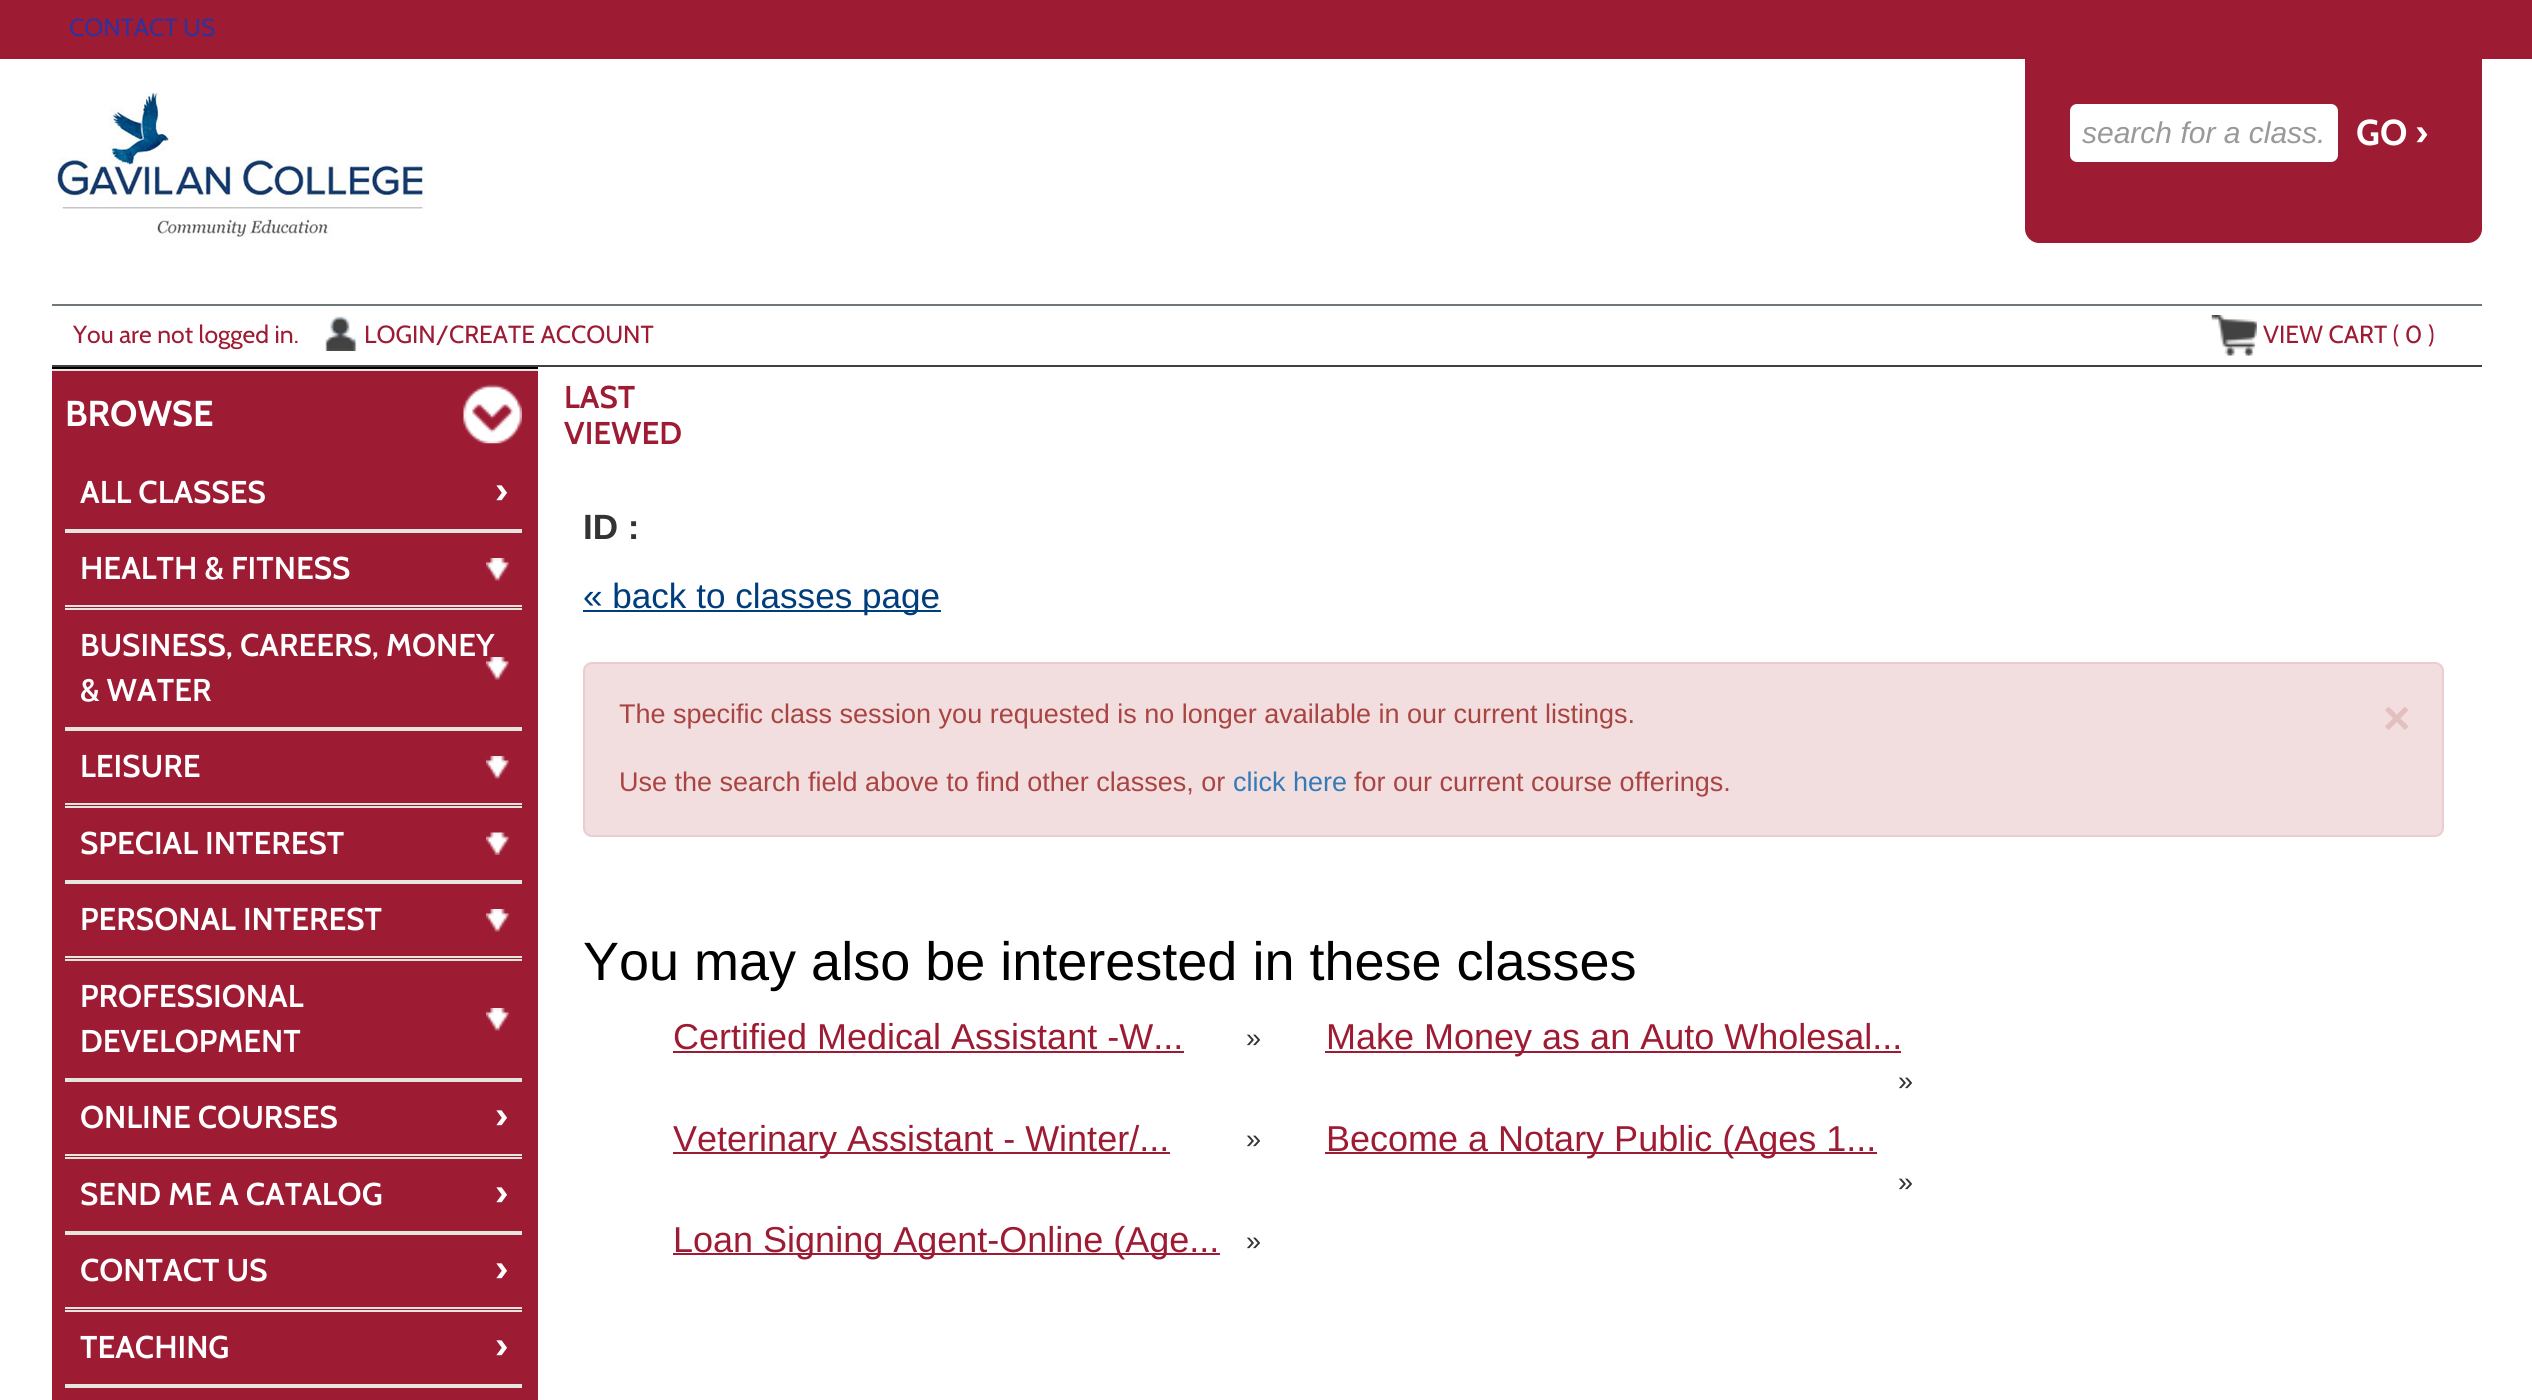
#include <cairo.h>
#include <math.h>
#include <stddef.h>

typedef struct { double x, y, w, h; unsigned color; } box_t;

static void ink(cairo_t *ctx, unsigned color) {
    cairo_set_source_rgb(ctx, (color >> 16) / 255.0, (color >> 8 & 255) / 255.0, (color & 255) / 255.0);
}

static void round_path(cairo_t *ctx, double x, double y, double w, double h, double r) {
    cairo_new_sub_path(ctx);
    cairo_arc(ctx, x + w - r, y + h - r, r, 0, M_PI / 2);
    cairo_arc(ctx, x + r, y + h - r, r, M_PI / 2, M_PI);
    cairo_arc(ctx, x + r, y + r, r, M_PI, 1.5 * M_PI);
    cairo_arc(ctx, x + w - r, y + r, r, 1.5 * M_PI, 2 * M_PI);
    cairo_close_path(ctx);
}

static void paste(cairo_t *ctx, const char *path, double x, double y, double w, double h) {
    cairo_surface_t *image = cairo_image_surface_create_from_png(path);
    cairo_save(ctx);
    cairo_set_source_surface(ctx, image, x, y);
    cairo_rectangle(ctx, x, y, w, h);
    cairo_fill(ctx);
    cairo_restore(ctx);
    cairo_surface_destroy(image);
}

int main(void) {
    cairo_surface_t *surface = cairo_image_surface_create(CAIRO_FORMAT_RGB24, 2532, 1400);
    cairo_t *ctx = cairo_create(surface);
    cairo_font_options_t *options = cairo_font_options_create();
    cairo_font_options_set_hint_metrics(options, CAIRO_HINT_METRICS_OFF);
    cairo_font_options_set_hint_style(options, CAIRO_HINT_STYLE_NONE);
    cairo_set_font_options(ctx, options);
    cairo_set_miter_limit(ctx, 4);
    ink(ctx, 0xFFFFFF);
    cairo_paint(ctx);
    ink(ctx, 0x9E1B34);
    cairo_rectangle(ctx, 0, 0, 2532, 59);
    cairo_fill(ctx);
    cairo_select_font_face(ctx, "Cabin", CAIRO_FONT_SLANT_NORMAL, CAIRO_FONT_WEIGHT_NORMAL);
    cairo_set_font_size(ctx, 24.75);
    ink(ctx, 0x31319B);
    cairo_move_to(ctx, 69, 36);
    cairo_show_text(ctx, "CONTACT US");
    paste(ctx, "media/1.png", 52, 92, 374, 146);
    ink(ctx, 0x9E1B34);
    cairo_new_path(ctx);
    cairo_move_to(ctx, 2025, 59);
    cairo_line_to(ctx, 2482, 59);
    cairo_line_to(ctx, 2482, 229);
    cairo_curve_to(ctx, 2482, 236.5, 2475.5, 243, 2468, 243);
    cairo_line_to(ctx, 2039, 243);
    cairo_curve_to(ctx, 2031.5, 243, 2025, 236.5, 2025, 229);
    cairo_close_path(ctx);
    cairo_fill(ctx);
    ink(ctx, 0xFFFFFF);
    round_path(ctx, 2070, 104, 268, 58, 7);
    cairo_fill(ctx);
    cairo_select_font_face(ctx, "Liberation Sans", CAIRO_FONT_SLANT_ITALIC, CAIRO_FONT_WEIGHT_NORMAL);
    cairo_set_font_size(ctx, 30);
    ink(ctx, 0x999999);
    cairo_move_to(ctx, 2082, 143);
    cairo_show_text(ctx, "search for a class.");
    cairo_select_font_face(ctx, "Cabin", CAIRO_FONT_SLANT_NORMAL, CAIRO_FONT_WEIGHT_BOLD);
    cairo_set_font_size(ctx, 36);
    ink(ctx, 0xFFFFFF);
    cairo_move_to(ctx, 2356, 145);
    cairo_show_text(ctx, "GO ›");
    ink(ctx, 0x70787C);
    cairo_rectangle(ctx, 52, 304, 2430, 2);
    cairo_fill(ctx);
    ink(ctx, 0x3B4144);
    cairo_rectangle(ctx, 52, 365, 2430, 2);
    cairo_fill(ctx);
    cairo_select_font_face(ctx, "Cabin", CAIRO_FONT_SLANT_NORMAL, CAIRO_FONT_WEIGHT_NORMAL);
    cairo_set_font_size(ctx, 24.75);
    ink(ctx, 0x9E1B34);
    cairo_move_to(ctx, 73, 343);
    cairo_show_text(ctx, "You are not logged in.");
    paste(ctx, "media/2.png", 325, 316, 32, 35);
    cairo_move_to(ctx, 364, 343);
    cairo_show_text(ctx, "LOGIN/CREATE ACCOUNT");
    paste(ctx, "media/3.png", 2211, 315, 46, 41);
    cairo_move_to(ctx, 2263, 343);
    cairo_show_text(ctx, "VIEW CART ( 0 )");
    {
        static const box_t items[] = {
            {52, 371, 486, 1029, 0x9E1B34},
            {52, 367, 486, 2, 0x000000},
            {52, 369, 486, 2, 0xE6E6DE},
        };
        for (size_t i = 0; i < sizeof items / sizeof *items; i++) {
            ink(ctx, items[i].color);
            cairo_rectangle(ctx, items[i].x, items[i].y, items[i].w, items[i].h);
            cairo_fill(ctx);
        }
    }
    paste(ctx, "media/4.png", 463, 384, 59, 60);
    cairo_select_font_face(ctx, "Cabin", CAIRO_FONT_SLANT_NORMAL, CAIRO_FONT_WEIGHT_BOLD);
    cairo_set_font_size(ctx, 36);
    ink(ctx, 0xFFFFFF);
    cairo_move_to(ctx, 65, 426);
    cairo_show_text(ctx, "BROWSE");
    ink(ctx, 0xE6E6DE);
    cairo_rectangle(ctx, 65, 529, 457, 4);
    cairo_fill(ctx);
    cairo_select_font_face(ctx, "Cabin SemiBold", CAIRO_FONT_SLANT_NORMAL, CAIRO_FONT_WEIGHT_NORMAL);
    cairo_set_font_size(ctx, 31.5);
    ink(ctx, 0xFFFFFF);
    cairo_move_to(ctx, 80, 503);
    cairo_show_text(ctx, "ALL CLASSES");
    cairo_select_font_face(ctx, "Cabin", CAIRO_FONT_SLANT_NORMAL, CAIRO_FONT_WEIGHT_BOLD);
    cairo_set_font_size(ctx, 36);
    cairo_move_to(ctx, 495, 503);
    cairo_show_text(ctx, "›");
    ink(ctx, 0xE6E6DE);
    cairo_rectangle(ctx, 65, 605, 457, 2);
    cairo_fill(ctx);
    paste(ctx, "media/5.png", 486, 558, 23, 23);
    cairo_select_font_face(ctx, "Cabin SemiBold", CAIRO_FONT_SLANT_NORMAL, CAIRO_FONT_WEIGHT_NORMAL);
    cairo_set_font_size(ctx, 31.5);
    ink(ctx, 0xFFFFFF);
    cairo_move_to(ctx, 80, 579);
    cairo_show_text(ctx, "HEALTH & FITNESS");
    ink(ctx, 0xE6E6DE);
    cairo_rectangle(ctx, 65, 608, 457, 2);
    cairo_fill(ctx);
    cairo_rectangle(ctx, 65, 727, 457, 4);
    cairo_fill(ctx);
    paste(ctx, "media/5.png", 486, 657, 23, 23);
    ink(ctx, 0xFFFFFF);
    cairo_move_to(ctx, 80, 656);
    cairo_show_text(ctx, "BUSINESS, CAREERS, MONEY");
    cairo_move_to(ctx, 80, 701);
    cairo_show_text(ctx, "& WATER");
    ink(ctx, 0xE6E6DE);
    cairo_rectangle(ctx, 65, 803, 457, 2);
    cairo_fill(ctx);
    paste(ctx, "media/5.png", 486, 756, 23, 23);
    ink(ctx, 0xFFFFFF);
    cairo_move_to(ctx, 80, 777);
    cairo_show_text(ctx, "LEISURE");
    ink(ctx, 0xE6E6DE);
    cairo_rectangle(ctx, 65, 806, 457, 2);
    cairo_fill(ctx);
    cairo_rectangle(ctx, 65, 880, 457, 4);
    cairo_fill(ctx);
    paste(ctx, "media/6.png", 486, 832, 23, 23);
    ink(ctx, 0xFFFFFF);
    cairo_move_to(ctx, 80, 854);
    cairo_show_text(ctx, "SPECIAL INTEREST");
    ink(ctx, 0xE6E6DE);
    cairo_rectangle(ctx, 65, 956, 457, 2);
    cairo_fill(ctx);
    paste(ctx, "media/5.png", 486, 909, 23, 23);
    ink(ctx, 0xFFFFFF);
    cairo_move_to(ctx, 80, 930);
    cairo_show_text(ctx, "PERSONAL INTEREST");
    ink(ctx, 0xE6E6DE);
    cairo_rectangle(ctx, 65, 959, 457, 2);
    cairo_fill(ctx);
    cairo_rectangle(ctx, 65, 1078, 457, 4);
    cairo_fill(ctx);
    paste(ctx, "media/5.png", 486, 1008, 23, 23);
    ink(ctx, 0xFFFFFF);
    cairo_move_to(ctx, 80, 1007);
    cairo_show_text(ctx, "PROFESSIONAL");
    cairo_move_to(ctx, 80, 1052);
    cairo_show_text(ctx, "DEVELOPMENT");
    ink(ctx, 0xE6E6DE);
    cairo_rectangle(ctx, 65, 1154, 457, 2);
    cairo_fill(ctx);
    ink(ctx, 0xFFFFFF);
    cairo_move_to(ctx, 80, 1128);
    cairo_show_text(ctx, "ONLINE COURSES");
    cairo_select_font_face(ctx, "Cabin", CAIRO_FONT_SLANT_NORMAL, CAIRO_FONT_WEIGHT_BOLD);
    cairo_set_font_size(ctx, 36);
    cairo_move_to(ctx, 495, 1128);
    cairo_show_text(ctx, "›");
    ink(ctx, 0xE6E6DE);
    cairo_rectangle(ctx, 65, 1157, 457, 2);
    cairo_fill(ctx);
    cairo_rectangle(ctx, 65, 1231, 457, 4);
    cairo_fill(ctx);
    cairo_select_font_face(ctx, "Cabin SemiBold", CAIRO_FONT_SLANT_NORMAL, CAIRO_FONT_WEIGHT_NORMAL);
    cairo_set_font_size(ctx, 31.5);
    ink(ctx, 0xFFFFFF);
    cairo_move_to(ctx, 80, 1205);
    cairo_show_text(ctx, "SEND ME A CATALOG");
    cairo_select_font_face(ctx, "Cabin", CAIRO_FONT_SLANT_NORMAL, CAIRO_FONT_WEIGHT_BOLD);
    cairo_set_font_size(ctx, 36);
    cairo_move_to(ctx, 495, 1205);
    cairo_show_text(ctx, "›");
    ink(ctx, 0xE6E6DE);
    cairo_rectangle(ctx, 65, 1307, 457, 2);
    cairo_fill(ctx);
    cairo_select_font_face(ctx, "Cabin SemiBold", CAIRO_FONT_SLANT_NORMAL, CAIRO_FONT_WEIGHT_NORMAL);
    cairo_set_font_size(ctx, 31.5);
    ink(ctx, 0xFFFFFF);
    cairo_move_to(ctx, 80, 1281);
    cairo_show_text(ctx, "CONTACT US");
    cairo_select_font_face(ctx, "Cabin", CAIRO_FONT_SLANT_NORMAL, CAIRO_FONT_WEIGHT_BOLD);
    cairo_set_font_size(ctx, 36);
    cairo_move_to(ctx, 495, 1281);
    cairo_show_text(ctx, "›");
    ink(ctx, 0xE6E6DE);
    cairo_rectangle(ctx, 65, 1310, 457, 2);
    cairo_fill(ctx);
    cairo_rectangle(ctx, 65, 1384, 457, 4);
    cairo_fill(ctx);
    cairo_select_font_face(ctx, "Cabin SemiBold", CAIRO_FONT_SLANT_NORMAL, CAIRO_FONT_WEIGHT_NORMAL);
    cairo_set_font_size(ctx, 31.5);
    ink(ctx, 0xFFFFFF);
    cairo_move_to(ctx, 80, 1358);
    cairo_show_text(ctx, "TEACHING");
    cairo_select_font_face(ctx, "Cabin", CAIRO_FONT_SLANT_NORMAL, CAIRO_FONT_WEIGHT_BOLD);
    cairo_set_font_size(ctx, 36);
    cairo_move_to(ctx, 495, 1358);
    cairo_show_text(ctx, "›");
    cairo_select_font_face(ctx, "Cabin SemiBold", CAIRO_FONT_SLANT_NORMAL, CAIRO_FONT_WEIGHT_NORMAL);
    cairo_set_font_size(ctx, 31.5);
    ink(ctx, 0x9E1B34);
    cairo_move_to(ctx, 564, 408);
    cairo_show_text(ctx, "LAST");
    cairo_move_to(ctx, 564, 444);
    cairo_show_text(ctx, "VIEWED");
    cairo_select_font_face(ctx, "Liberation Sans", CAIRO_FONT_SLANT_NORMAL, CAIRO_FONT_WEIGHT_BOLD);
    cairo_set_font_size(ctx, 35.1);
    ink(ctx, 0x333333);
    cairo_move_to(ctx, 583, 539);
    cairo_show_text(ctx, "ID :");
    ink(ctx, 0x003D7D);
    cairo_rectangle(ctx, 583, 610, 358, 2);
    cairo_fill(ctx);
    cairo_select_font_face(ctx, "Liberation Sans", CAIRO_FONT_SLANT_NORMAL, CAIRO_FONT_WEIGHT_NORMAL);
    cairo_move_to(ctx, 583, 608);
    cairo_show_text(ctx, "« back to classes page");
    ink(ctx, 0xF2DEDE);
    round_path(ctx, 584, 663, 1859, 173, 8);
    cairo_fill_preserve(ctx);
    ink(ctx, 0xEBCCD1);
    cairo_stroke(ctx);
    cairo_set_font_size(ctx, 27);
    ink(ctx, 0xA94442);
    cairo_move_to(ctx, 619, 723);
    cairo_show_text(ctx, "The specific class session you requested is no longer available in our current listings.");
    cairo_select_font_face(ctx, "Liberation Sans", CAIRO_FONT_SLANT_NORMAL, CAIRO_FONT_WEIGHT_BOLD);
    cairo_set_font_size(ctx, 47);
    ink(ctx, 0xE3BFBF);
    cairo_move_to(ctx, 2383, 734);
    cairo_show_text(ctx, "×");
    cairo_select_font_face(ctx, "Liberation Sans", CAIRO_FONT_SLANT_NORMAL, CAIRO_FONT_WEIGHT_NORMAL);
    cairo_set_font_size(ctx, 27);
    ink(ctx, 0xA94442);
    cairo_move_to(ctx, 619, 791);
    cairo_show_text(ctx, "Use the search field above to find other classes, or");
    ink(ctx, 0x337AB7);
    cairo_move_to(ctx, 1233, 791);
    cairo_show_text(ctx, "click here");
    ink(ctx, 0xA94442);
    cairo_move_to(ctx, 1354, 791);
    cairo_show_text(ctx, "for our current course offerings.");
    cairo_set_font_size(ctx, 54);
    ink(ctx, 0x000000);
    cairo_move_to(ctx, 583, 980);
    cairo_show_text(ctx, "You may also be interested in these classes");
    cairo_set_font_size(ctx, 36);
    ink(ctx, 0x9E1B34);
    cairo_move_to(ctx, 673, 1049);
    cairo_show_text(ctx, "Certified Medical Assistant -W...");
    cairo_rectangle(ctx, 673, 1051, 511, 2);
    cairo_fill(ctx);
    cairo_set_font_size(ctx, 27);
    ink(ctx, 0x333333);
    cairo_move_to(ctx, 1246, 1047);
    cairo_show_text(ctx, "»");
    ink(ctx, 0x9E1B34);
    cairo_rectangle(ctx, 1325, 1051, 576, 2);
    cairo_fill(ctx);
    cairo_set_font_size(ctx, 36);
    cairo_move_to(ctx, 1326, 1049);
    cairo_show_text(ctx, "Make Money as an Auto Wholesal...");
    cairo_set_font_size(ctx, 27);
    ink(ctx, 0x333333);
    cairo_move_to(ctx, 1898, 1090);
    cairo_show_text(ctx, "»");
    ink(ctx, 0x9E1B34);
    cairo_rectangle(ctx, 673, 1152, 497, 2);
    cairo_fill(ctx);
    cairo_set_font_size(ctx, 36);
    cairo_move_to(ctx, 673, 1151);
    cairo_show_text(ctx, "Veterinary Assistant - Winter/...");
    cairo_set_font_size(ctx, 27);
    ink(ctx, 0x333333);
    cairo_move_to(ctx, 1246, 1148);
    cairo_show_text(ctx, "»");
    ink(ctx, 0x9E1B34);
    cairo_rectangle(ctx, 1325, 1152, 552, 2);
    cairo_fill(ctx);
    cairo_set_font_size(ctx, 36);
    cairo_move_to(ctx, 1326, 1151);
    cairo_show_text(ctx, "Become a Notary Public (Ages 1...");
    cairo_set_font_size(ctx, 27);
    ink(ctx, 0x333333);
    cairo_move_to(ctx, 1898, 1191);
    cairo_show_text(ctx, "»");
    ink(ctx, 0x9E1B34);
    cairo_rectangle(ctx, 673, 1253, 547, 2);
    cairo_fill(ctx);
    cairo_set_font_size(ctx, 36);
    cairo_move_to(ctx, 673, 1252);
    cairo_show_text(ctx, "Loan Signing Agent-Online (Age...");
    cairo_set_font_size(ctx, 27);
    ink(ctx, 0x333333);
    cairo_move_to(ctx, 1246, 1250);
    cairo_show_text(ctx, "»");
    cairo_surface_write_to_png(surface, "image.png");
    cairo_font_options_destroy(options);
    cairo_destroy(ctx);
    cairo_surface_destroy(surface);
    return 0;
}
